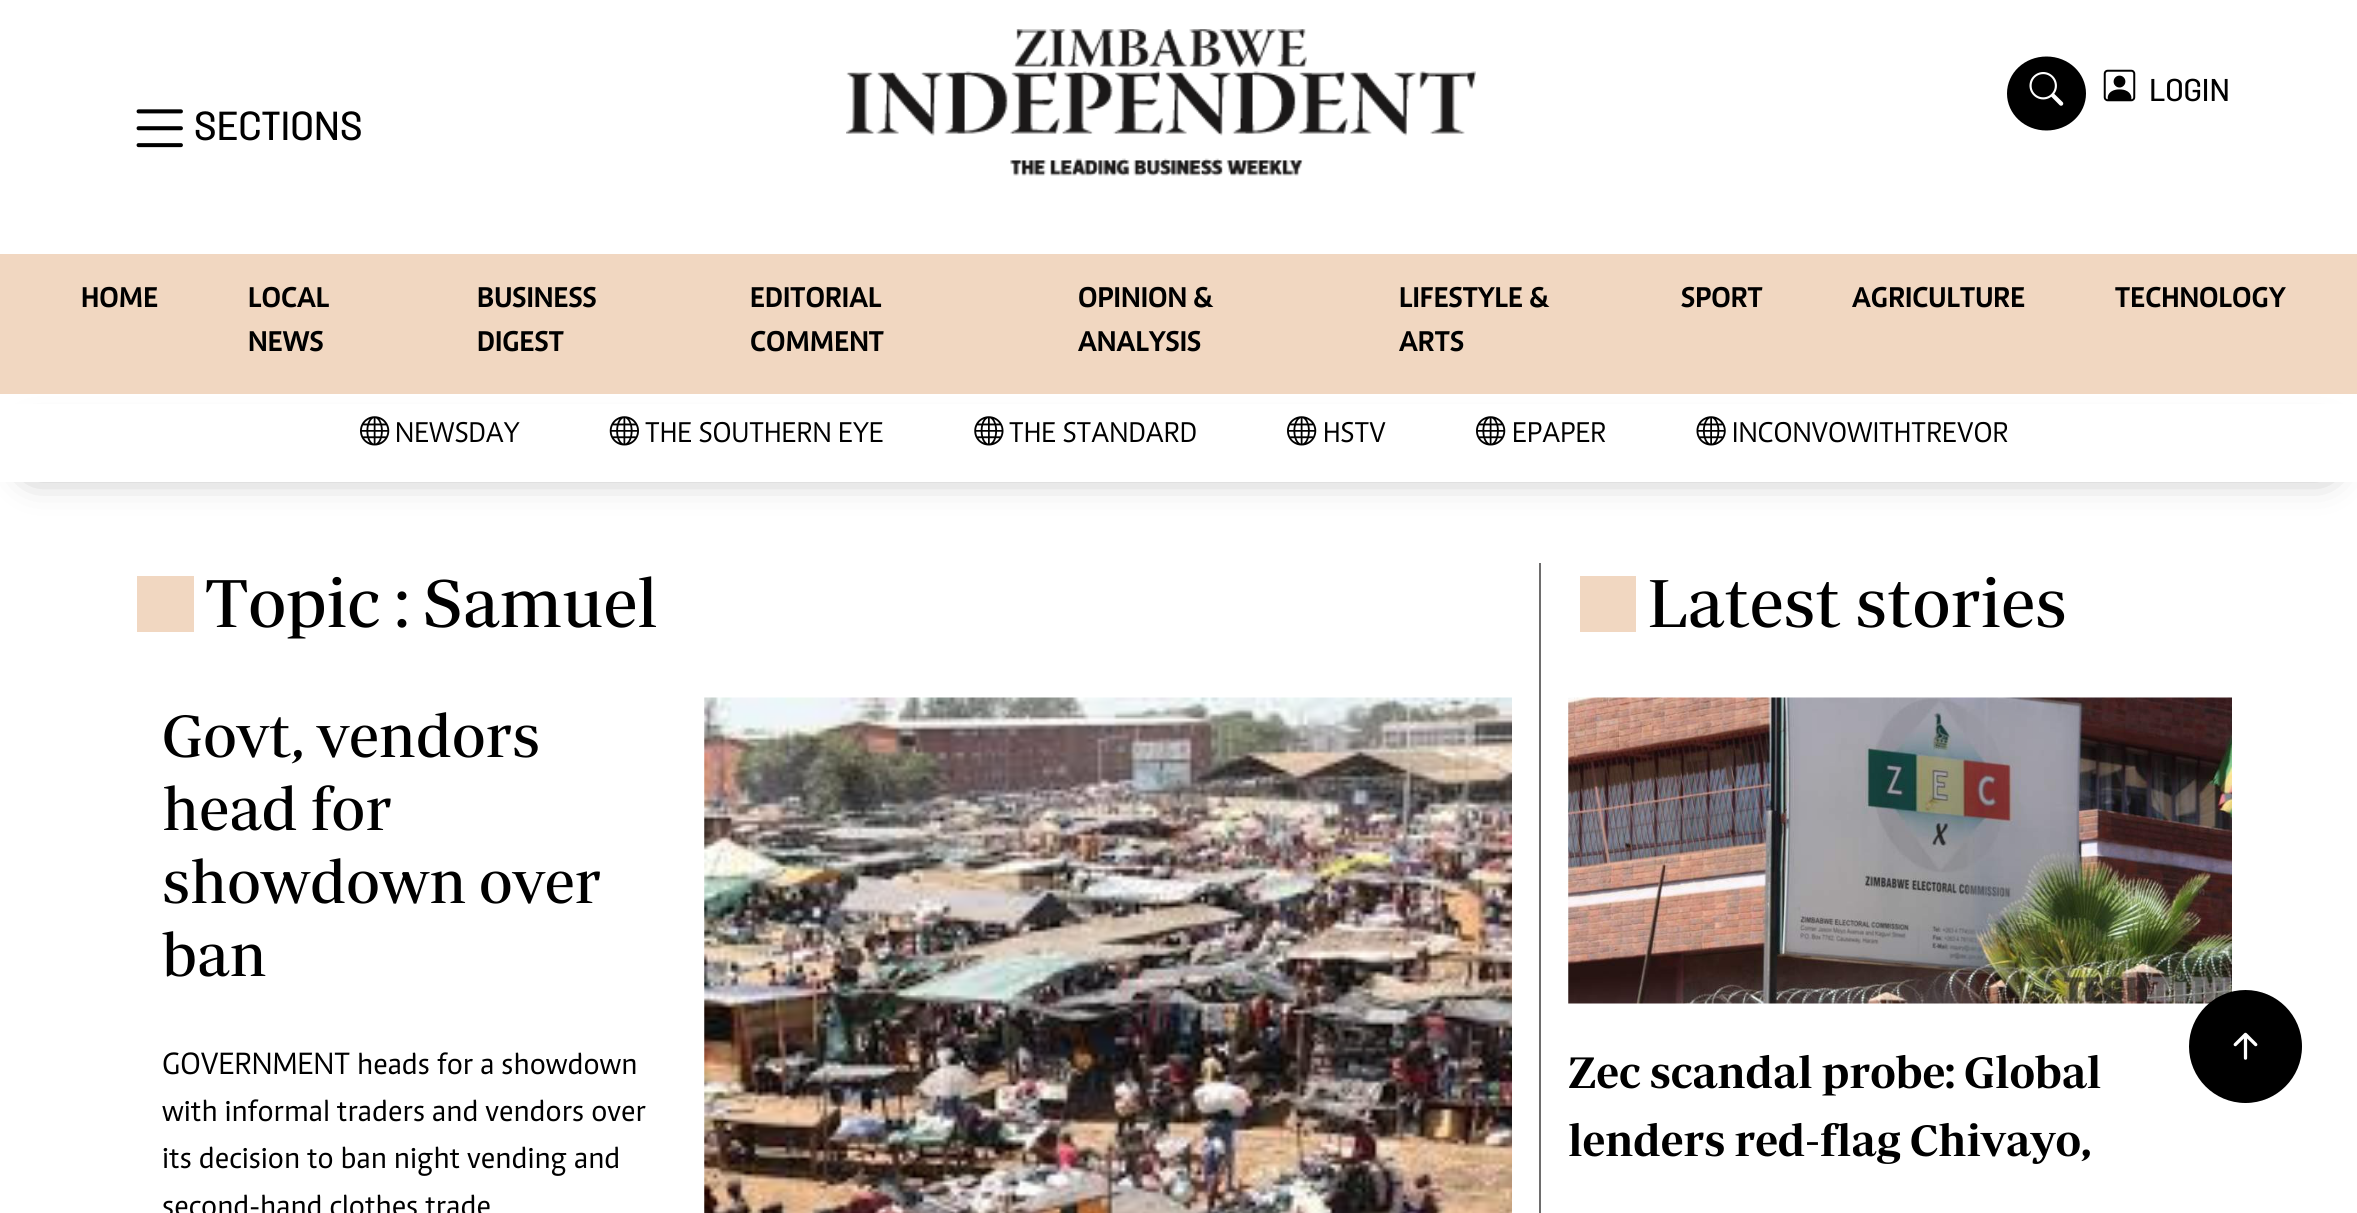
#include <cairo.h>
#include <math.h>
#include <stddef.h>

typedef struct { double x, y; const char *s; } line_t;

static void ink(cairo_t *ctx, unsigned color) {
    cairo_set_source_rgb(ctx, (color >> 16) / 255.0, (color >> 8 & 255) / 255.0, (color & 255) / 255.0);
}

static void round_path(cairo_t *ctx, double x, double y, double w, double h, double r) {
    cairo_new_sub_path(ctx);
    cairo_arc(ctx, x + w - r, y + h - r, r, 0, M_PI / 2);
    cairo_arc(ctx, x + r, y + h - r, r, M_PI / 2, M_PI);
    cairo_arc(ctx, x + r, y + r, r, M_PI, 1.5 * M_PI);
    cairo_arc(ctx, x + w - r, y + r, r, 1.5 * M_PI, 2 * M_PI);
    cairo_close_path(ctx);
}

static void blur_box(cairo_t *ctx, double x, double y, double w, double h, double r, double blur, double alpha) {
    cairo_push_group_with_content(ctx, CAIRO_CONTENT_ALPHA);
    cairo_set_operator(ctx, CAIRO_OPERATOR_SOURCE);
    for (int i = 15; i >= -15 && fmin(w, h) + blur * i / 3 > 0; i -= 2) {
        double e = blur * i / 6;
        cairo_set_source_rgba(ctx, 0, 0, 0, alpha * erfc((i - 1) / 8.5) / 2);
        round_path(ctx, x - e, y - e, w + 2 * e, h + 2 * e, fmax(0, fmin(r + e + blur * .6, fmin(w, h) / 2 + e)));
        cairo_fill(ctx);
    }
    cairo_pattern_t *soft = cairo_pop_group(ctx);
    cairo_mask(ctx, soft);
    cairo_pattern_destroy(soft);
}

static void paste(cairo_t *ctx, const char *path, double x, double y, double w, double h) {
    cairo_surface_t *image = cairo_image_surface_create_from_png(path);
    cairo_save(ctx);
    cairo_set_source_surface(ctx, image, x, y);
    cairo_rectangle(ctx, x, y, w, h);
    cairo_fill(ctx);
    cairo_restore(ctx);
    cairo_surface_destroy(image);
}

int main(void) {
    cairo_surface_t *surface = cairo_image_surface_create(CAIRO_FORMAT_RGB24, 2357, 1213);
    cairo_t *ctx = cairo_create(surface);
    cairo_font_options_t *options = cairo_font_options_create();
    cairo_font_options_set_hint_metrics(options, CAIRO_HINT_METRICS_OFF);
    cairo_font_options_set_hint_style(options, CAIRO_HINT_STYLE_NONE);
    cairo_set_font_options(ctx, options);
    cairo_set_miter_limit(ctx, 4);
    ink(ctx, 0xFFFFFF);
    cairo_paint(ctx);
    paste(ctx, "media/1.png", 846, 29, 630, 147);
    ink(ctx, 0x000000);
    cairo_new_path(ctx);
    cairo_move_to(ctx, 2046.5, 56.5);
    cairo_curve_to(ctx, 2068.5, 56.5, 2086, 73, 2086, 93.5);
    cairo_curve_to(ctx, 2086, 114, 2068.5, 130.5, 2046.5, 130.5);
    cairo_curve_to(ctx, 2024.5, 130.5, 2007, 114, 2007, 93.5);
    cairo_curve_to(ctx, 2007, 73, 2024.5, 56.5, 2046.5, 56.5);
    cairo_close_path(ctx);
    cairo_fill(ctx);
    paste(ctx, "media/2.png", 2029, 72, 35, 34);
    paste(ctx, "media/3.png", 2103, 69, 33, 33);
    cairo_select_font_face(ctx, "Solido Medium", CAIRO_FONT_SLANT_NORMAL, CAIRO_FONT_WEIGHT_NORMAL);
    cairo_set_font_size(ctx, 31.5);
    cairo_move_to(ctx, 2149, 101);
    cairo_show_text(ctx, "LOGIN");
    paste(ctx, "media/4.png", 136, 109, 47, 39);
    cairo_set_font_size(ctx, 40.5);
    cairo_move_to(ctx, 194, 140);
    cairo_show_text(ctx, "SECTIONS");
    ink(ctx, 0x000000);
    blur_box(ctx, 34, 446, 2290, 20, 0, 20, 0.56);
    ink(ctx, 0xF1D7C1);
    cairo_rectangle(ctx, 0, 254, 2357, 140);
    cairo_fill(ctx);
    cairo_select_font_face(ctx, "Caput", CAIRO_FONT_SLANT_NORMAL, CAIRO_FONT_WEIGHT_BOLD);
    cairo_set_font_size(ctx, 29.25);
    ink(ctx, 0x000000);
    {
        static const line_t items[] = {
            {81, 307, "HOME"},
            {248, 307, "LOCAL"},
            {248, 351, "NEWS"},
            {477, 307, "BUSINESS"},
            {477, 351, "DIGEST"},
            {750, 307, "EDITORIAL"},
            {750, 351, "COMMENT"},
            {1078, 307, "OPINION &"},
            {1078, 351, "ANALYSIS"},
            {1399, 307, "LIFESTYLE &"},
            {1399, 351, "ARTS"},
            {1681, 307, "SPORT"},
            {1852, 307, "AGRICULTURE"},
            {2115, 307, "TECHNOLOGY"},
        };
        for (size_t i = 0; i < sizeof items / sizeof *items; i++) {
            cairo_move_to(ctx, items[i].x, items[i].y);
            cairo_show_text(ctx, items[i].s);
        }
    }
    ink(ctx, 0xFFFFFF);
    cairo_rectangle(ctx, 0, 404, 2357, 78);
    cairo_fill(ctx);
    paste(ctx, "media/5.png", 360, 416, 30, 30);
    cairo_select_font_face(ctx, "Caput", CAIRO_FONT_SLANT_NORMAL, CAIRO_FONT_WEIGHT_NORMAL);
    ink(ctx, 0x000000);
    cairo_move_to(ctx, 395, 442);
    cairo_show_text(ctx, "NEWSDAY");
    paste(ctx, "media/6.png", 609, 416, 30, 30);
    cairo_move_to(ctx, 645, 442);
    cairo_show_text(ctx, "THE SOUTHERN EYE");
    paste(ctx, "media/7.png", 974, 416, 30, 30);
    cairo_move_to(ctx, 1009, 442);
    cairo_show_text(ctx, "THE STANDARD");
    paste(ctx, "media/5.png", 1287, 416, 30, 30);
    cairo_move_to(ctx, 1323, 442);
    cairo_show_text(ctx, "HSTV");
    paste(ctx, "media/5.png", 1476, 416, 30, 30);
    cairo_move_to(ctx, 1512, 442);
    cairo_show_text(ctx, "EPAPER");
    paste(ctx, "media/8.png", 1696, 416, 30, 30);
    cairo_move_to(ctx, 1732, 442);
    cairo_show_text(ctx, "INCONVOWITHTREVOR");
    ink(ctx, 0xF1D7C1);
    cairo_rectangle(ctx, 137, 576, 57, 56);
    cairo_fill(ctx);
    cairo_select_font_face(ctx, "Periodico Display", CAIRO_FONT_SLANT_NORMAL, CAIRO_FONT_WEIGHT_NORMAL);
    cairo_set_font_size(ctx, 69);
    ink(ctx, 0x000000);
    cairo_move_to(ctx, 205, 627);
    cairo_show_text(ctx, "Topic : Samuel");
    cairo_set_font_size(ctx, 61);
    {
        static const line_t items[] = {
            {162, 757, "Govt, vendors"},
            {162, 830, "head for"},
            {162, 903, "showdown over"},
            {162, 976, "ban"},
        };
        for (size_t i = 0; i < sizeof items / sizeof *items; i++) {
            cairo_move_to(ctx, items[i].x, items[i].y);
            cairo_show_text(ctx, items[i].s);
        }
    }
    cairo_select_font_face(ctx, "Caput", CAIRO_FONT_SLANT_NORMAL, CAIRO_FONT_WEIGHT_NORMAL);
    cairo_set_font_size(ctx, 31.5);
    {
        static const line_t items[] = {
            {162, 1074, "GOVERNMENT heads for a showdown"},
            {162, 1121, "with informal traders and vendors over"},
            {162, 1168, "its decision to ban night vending and"},
            {162, 1216, "second-hand clothes trade"},
        };
        for (size_t i = 0; i < sizeof items / sizeof *items; i++) {
            cairo_move_to(ctx, items[i].x, items[i].y);
            cairo_show_text(ctx, items[i].s);
        }
    }
    paste(ctx, "media/9.png", 704, 697, 808, 516);
    ink(ctx, 0x6E6D6D);
    cairo_rectangle(ctx, 1539, 563, 2, 650);
    cairo_fill(ctx);
    ink(ctx, 0xF1D7C1);
    cairo_rectangle(ctx, 1580, 576, 56, 56);
    cairo_fill(ctx);
    cairo_select_font_face(ctx, "Periodico Display", CAIRO_FONT_SLANT_NORMAL, CAIRO_FONT_WEIGHT_NORMAL);
    cairo_set_font_size(ctx, 69);
    ink(ctx, 0x000000);
    cairo_move_to(ctx, 1647, 627);
    cairo_show_text(ctx, "Latest stories");
    paste(ctx, "media/10.png", 1568, 697, 664, 307);
    cairo_select_font_face(ctx, "Periodico Display SemiBold", CAIRO_FONT_SLANT_NORMAL, CAIRO_FONT_WEIGHT_NORMAL);
    cairo_set_font_size(ctx, 45);
    cairo_move_to(ctx, 1568, 1088);
    cairo_show_text(ctx, "Zec scandal probe: Global");
    cairo_move_to(ctx, 1568, 1156);
    cairo_show_text(ctx, "lenders red-flag Chivayo,");
    cairo_new_path(ctx);
    cairo_arc(ctx, 2245.5, 1046.5, 56.5, 0, 2 * M_PI);
    cairo_fill(ctx);
    paste(ctx, "media/11.png", 2233, 1032, 25, 28);
    cairo_surface_write_to_png(surface, "image.png");
    cairo_font_options_destroy(options);
    cairo_destroy(ctx);
    cairo_surface_destroy(surface);
    return 0;
}
